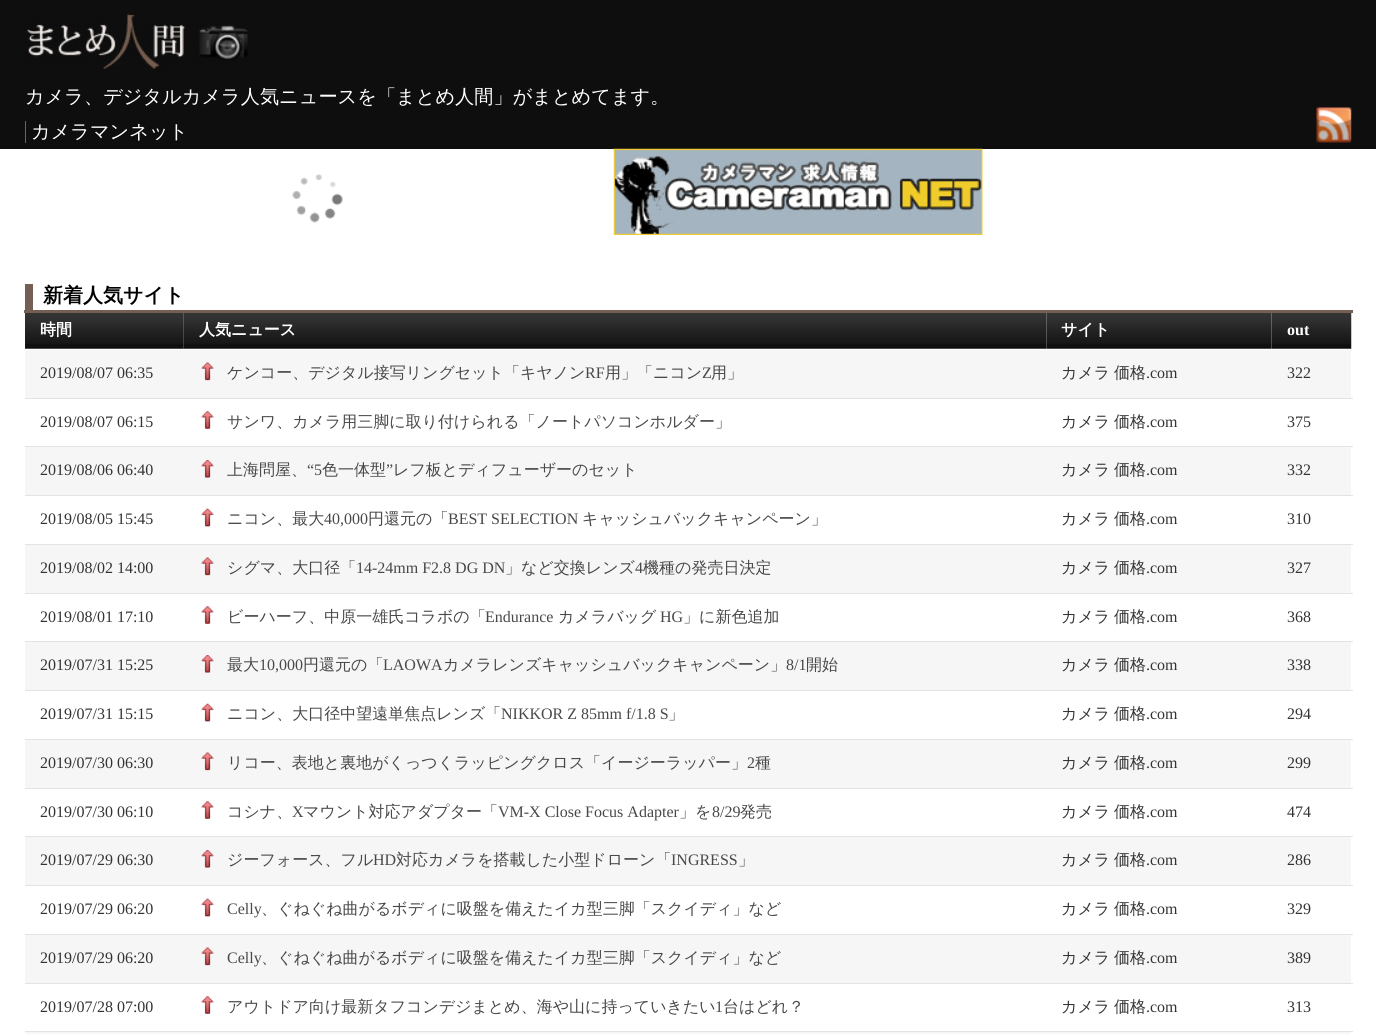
#include <cairo.h>
#include <math.h>
#include <stddef.h>


static void ink(cairo_t *ctx, unsigned color) {
    cairo_set_source_rgb(ctx, (color >> 16) / 255.0, (color >> 8 & 255) / 255.0, (color & 255) / 255.0);
}

static void write_spaced(cairo_t *ctx, double x, double y, const char *s, double letter, double word) {
    cairo_move_to(ctx, x, y);
    while (*s) {
        char ch[5] = {0};
        int n = 0;
        do ch[n++] = *s++; while ((*s & 0xC0) == 0x80);
        cairo_show_text(ctx, ch);
        cairo_rel_move_to(ctx, letter + word * (*ch == ' '), 0);
    }
}

static void paste(cairo_t *ctx, const char *path, double x, double y, double w, double h) {
    cairo_surface_t *image = cairo_image_surface_create_from_png(path);
    cairo_save(ctx);
    cairo_set_source_surface(ctx, image, x, y);
    cairo_rectangle(ctx, x, y, w, h);
    cairo_fill(ctx);
    cairo_restore(ctx);
    cairo_surface_destroy(image);
}

int main(void) {
    cairo_surface_t *surface = cairo_image_surface_create(CAIRO_FORMAT_RGB24, 1376, 1034);
    cairo_t *ctx = cairo_create(surface);
    cairo_font_options_t *options = cairo_font_options_create();
    cairo_font_options_set_hint_metrics(options, CAIRO_HINT_METRICS_OFF);
    cairo_font_options_set_hint_style(options, CAIRO_HINT_STYLE_NONE);
    cairo_set_font_options(ctx, options);
    cairo_set_miter_limit(ctx, 4);
    ink(ctx, 0xFFFFFF);
    cairo_paint(ctx);
    ink(ctx, 0x0E0E0E);
    cairo_rectangle(ctx, 0, 0, 1376, 149);
    cairo_fill(ctx);
    paste(ctx, "media/1.png", 25, 13, 223, 56);
    cairo_select_font_face(ctx, "WenQuanYi Zen Hei Medium", CAIRO_FONT_SLANT_NORMAL, CAIRO_FONT_WEIGHT_NORMAL);
    cairo_set_font_size(ctx, 19.2);
    ink(ctx, 0xFFFFFF);
    cairo_move_to(ctx, 25, 103);
    cairo_show_text(ctx, "カメラ、デジタルカメラ人気ニュースを「まとめ人間」がまとめてます。");
    cairo_move_to(ctx, 31, 138);
    cairo_show_text(ctx, "カメラマンネット");
    ink(ctx, 0x666666);
    cairo_rectangle(ctx, 25, 121, 1, 22);
    cairo_fill(ctx);
    paste(ctx, "media/2.png", 1316, 107, 36, 36);
    paste(ctx, "media/3.png", 292, 174, 51, 49);
    paste(ctx, "media/4.png", 613, 148, 370, 87);
    ink(ctx, 0x735F54);
    cairo_rectangle(ctx, 25, 284, 8, 26);
    cairo_fill(ctx);
    cairo_select_font_face(ctx, "WenQuanYi Zen Hei", CAIRO_FONT_SLANT_NORMAL, CAIRO_FONT_WEIGHT_BOLD);
    cairo_set_font_size(ctx, 20);
    ink(ctx, 0x000000);
    cairo_move_to(ctx, 43, 302);
    cairo_show_text(ctx, "新着人気サイト");
    paste(ctx, "media/5.png", 25, 313, 159, 36);
    cairo_set_font_size(ctx, 16);
    ink(ctx, 0xFFFFFF);
    cairo_move_to(ctx, 40, 335);
    cairo_show_text(ctx, "時間");
    paste(ctx, "media/6.png", 183, 313, 863, 36);
    cairo_move_to(ctx, 199, 335);
    cairo_show_text(ctx, "人気ニュース");
    paste(ctx, "media/7.png", 1046, 313, 225, 36);
    cairo_move_to(ctx, 1061, 335);
    cairo_show_text(ctx, "サイト");
    paste(ctx, "media/8.png", 1271, 313, 81, 36);
    ink(ctx, 0x735F54);
    cairo_rectangle(ctx, 24, 310, 1329, 3);
    cairo_fill(ctx);
    cairo_select_font_face(ctx, "Liberation Serif", CAIRO_FONT_SLANT_NORMAL, CAIRO_FONT_WEIGHT_BOLD);
    ink(ctx, 0xFFFFFF);
    cairo_move_to(ctx, 1287, 335);
    cairo_show_text(ctx, "out");
    ink(ctx, 0xF6F6F6);
    cairo_rectangle(ctx, 25, 350, 1326, 48);
    cairo_fill(ctx);
    cairo_select_font_face(ctx, "Liberation Serif", CAIRO_FONT_SLANT_NORMAL, CAIRO_FONT_WEIGHT_NORMAL);
    ink(ctx, 0x333333);
    cairo_move_to(ctx, 40, 378);
    cairo_show_text(ctx, "2019/08/07 06:35");
    paste(ctx, "media/9.png", 201, 362, 13, 19);
    cairo_select_font_face(ctx, "WenQuanYi Zen Hei Medium", CAIRO_FONT_SLANT_NORMAL, CAIRO_FONT_WEIGHT_NORMAL);
    ink(ctx, 0x484848);
    cairo_move_to(ctx, 227, 378);
    cairo_show_text(ctx, "ケンコー、デジタル接写リングセット「キヤノン");
    cairo_select_font_face(ctx, "Liberation Serif", CAIRO_FONT_SLANT_NORMAL, CAIRO_FONT_WEIGHT_NORMAL);
    cairo_move_to(ctx, 585, 378);
    cairo_show_text(ctx, "RF");
    cairo_select_font_face(ctx, "WenQuanYi Zen Hei Medium", CAIRO_FONT_SLANT_NORMAL, CAIRO_FONT_WEIGHT_NORMAL);
    cairo_move_to(ctx, 605, 378);
    cairo_show_text(ctx, "用」「ニコン");
    cairo_select_font_face(ctx, "Liberation Serif", CAIRO_FONT_SLANT_NORMAL, CAIRO_FONT_WEIGHT_NORMAL);
    cairo_move_to(ctx, 702, 378);
    cairo_show_text(ctx, "Z");
    cairo_select_font_face(ctx, "WenQuanYi Zen Hei Medium", CAIRO_FONT_SLANT_NORMAL, CAIRO_FONT_WEIGHT_NORMAL);
    cairo_move_to(ctx, 711, 378);
    cairo_show_text(ctx, "用」");
    ink(ctx, 0x333333);
    write_spaced(ctx, 1061, 378, "カメラ 価格", 0, -1);
    cairo_select_font_face(ctx, "Liberation Serif", CAIRO_FONT_SLANT_NORMAL, CAIRO_FONT_WEIGHT_NORMAL);
    cairo_move_to(ctx, 1146, 378);
    cairo_show_text(ctx, ".com");
    ink(ctx, 0xE3E3E3);
    cairo_rectangle(ctx, 25, 398, 1328, 1);
    cairo_fill(ctx);
    ink(ctx, 0x333333);
    cairo_move_to(ctx, 1287, 378);
    cairo_show_text(ctx, "322");
    cairo_move_to(ctx, 40, 427);
    cairo_show_text(ctx, "2019/08/07 06:15");
    paste(ctx, "media/10.png", 201, 411, 13, 18);
    cairo_select_font_face(ctx, "WenQuanYi Zen Hei Medium", CAIRO_FONT_SLANT_NORMAL, CAIRO_FONT_WEIGHT_NORMAL);
    ink(ctx, 0x484848);
    cairo_move_to(ctx, 227, 427);
    cairo_show_text(ctx, "サンワ、カメラ用三脚に取り付けられる「ノートパソコンホルダー」");
    ink(ctx, 0x333333);
    write_spaced(ctx, 1061, 427, "カメラ 価格", 0, -1);
    cairo_select_font_face(ctx, "Liberation Serif", CAIRO_FONT_SLANT_NORMAL, CAIRO_FONT_WEIGHT_NORMAL);
    cairo_move_to(ctx, 1146, 427);
    cairo_show_text(ctx, ".com");
    ink(ctx, 0xE3E3E3);
    cairo_rectangle(ctx, 25, 446, 1328, 1);
    cairo_fill(ctx);
    ink(ctx, 0x333333);
    cairo_move_to(ctx, 1287, 427);
    cairo_show_text(ctx, "375");
    ink(ctx, 0xF6F6F6);
    cairo_rectangle(ctx, 25, 447, 1326, 48);
    cairo_fill(ctx);
    ink(ctx, 0x333333);
    cairo_move_to(ctx, 40, 475);
    cairo_show_text(ctx, "2019/08/06 06:40");
    paste(ctx, "media/11.png", 201, 460, 13, 18);
    cairo_select_font_face(ctx, "WenQuanYi Zen Hei Medium", CAIRO_FONT_SLANT_NORMAL, CAIRO_FONT_WEIGHT_NORMAL);
    ink(ctx, 0x484848);
    cairo_move_to(ctx, 227, 475);
    cairo_show_text(ctx, "上海問屋、");
    cairo_select_font_face(ctx, "Liberation Serif", CAIRO_FONT_SLANT_NORMAL, CAIRO_FONT_WEIGHT_NORMAL);
    cairo_move_to(ctx, 307, 475);
    cairo_show_text(ctx, "“5");
    cairo_select_font_face(ctx, "WenQuanYi Zen Hei Medium", CAIRO_FONT_SLANT_NORMAL, CAIRO_FONT_WEIGHT_NORMAL);
    cairo_move_to(ctx, 322, 475);
    cairo_show_text(ctx, "色一体型");
    cairo_select_font_face(ctx, "Liberation Serif", CAIRO_FONT_SLANT_NORMAL, CAIRO_FONT_WEIGHT_NORMAL);
    cairo_move_to(ctx, 386, 475);
    cairo_show_text(ctx, "”");
    cairo_select_font_face(ctx, "WenQuanYi Zen Hei Medium", CAIRO_FONT_SLANT_NORMAL, CAIRO_FONT_WEIGHT_NORMAL);
    cairo_move_to(ctx, 393, 475);
    cairo_show_text(ctx, "レフ板とディフューザーのセット");
    ink(ctx, 0x333333);
    write_spaced(ctx, 1061, 475, "カメラ 価格", 0, -1);
    cairo_select_font_face(ctx, "Liberation Serif", CAIRO_FONT_SLANT_NORMAL, CAIRO_FONT_WEIGHT_NORMAL);
    cairo_move_to(ctx, 1146, 475);
    cairo_show_text(ctx, ".com");
    ink(ctx, 0xE3E3E3);
    cairo_rectangle(ctx, 25, 495, 1328, 1);
    cairo_fill(ctx);
    ink(ctx, 0x333333);
    cairo_move_to(ctx, 1287, 475);
    cairo_show_text(ctx, "332");
    cairo_move_to(ctx, 40, 524);
    cairo_show_text(ctx, "2019/08/05 15:45");
    paste(ctx, "media/12.png", 201, 508, 13, 19);
    cairo_select_font_face(ctx, "WenQuanYi Zen Hei Medium", CAIRO_FONT_SLANT_NORMAL, CAIRO_FONT_WEIGHT_NORMAL);
    ink(ctx, 0x484848);
    cairo_move_to(ctx, 227, 524);
    cairo_show_text(ctx, "ニコン、最大");
    cairo_select_font_face(ctx, "Liberation Serif", CAIRO_FONT_SLANT_NORMAL, CAIRO_FONT_WEIGHT_NORMAL);
    cairo_move_to(ctx, 324, 524);
    cairo_show_text(ctx, "40,000");
    cairo_select_font_face(ctx, "WenQuanYi Zen Hei Medium", CAIRO_FONT_SLANT_NORMAL, CAIRO_FONT_WEIGHT_NORMAL);
    cairo_move_to(ctx, 368, 524);
    cairo_show_text(ctx, "円還元の「");
    cairo_select_font_face(ctx, "Liberation Serif", CAIRO_FONT_SLANT_NORMAL, CAIRO_FONT_WEIGHT_NORMAL);
    cairo_move_to(ctx, 448, 524);
    cairo_show_text(ctx, "BEST SELECTION");
    cairo_select_font_face(ctx, "WenQuanYi Zen Hei Medium", CAIRO_FONT_SLANT_NORMAL, CAIRO_FONT_WEIGHT_NORMAL);
    cairo_move_to(ctx, 582, 524);
    cairo_show_text(ctx, "キャッシュバックキャンペーン」");
    ink(ctx, 0x333333);
    write_spaced(ctx, 1061, 524, "カメラ 価格", 0, -1);
    cairo_select_font_face(ctx, "Liberation Serif", CAIRO_FONT_SLANT_NORMAL, CAIRO_FONT_WEIGHT_NORMAL);
    cairo_move_to(ctx, 1146, 524);
    cairo_show_text(ctx, ".com");
    ink(ctx, 0xE3E3E3);
    cairo_rectangle(ctx, 25, 544, 1328, 1);
    cairo_fill(ctx);
    ink(ctx, 0x333333);
    cairo_move_to(ctx, 1287, 524);
    cairo_show_text(ctx, "310");
    ink(ctx, 0xF6F6F6);
    cairo_rectangle(ctx, 25, 545, 1326, 48);
    cairo_fill(ctx);
    ink(ctx, 0x333333);
    cairo_move_to(ctx, 40, 573);
    cairo_show_text(ctx, "2019/08/02 14:00");
    paste(ctx, "media/9.png", 201, 557, 13, 19);
    cairo_select_font_face(ctx, "WenQuanYi Zen Hei Medium", CAIRO_FONT_SLANT_NORMAL, CAIRO_FONT_WEIGHT_NORMAL);
    ink(ctx, 0x484848);
    cairo_move_to(ctx, 227, 573);
    cairo_show_text(ctx, "シグマ、大口径「");
    cairo_select_font_face(ctx, "Liberation Serif", CAIRO_FONT_SLANT_NORMAL, CAIRO_FONT_WEIGHT_NORMAL);
    cairo_move_to(ctx, 356, 573);
    cairo_show_text(ctx, "14-24mm F2.8 DG DN");
    cairo_select_font_face(ctx, "WenQuanYi Zen Hei Medium", CAIRO_FONT_SLANT_NORMAL, CAIRO_FONT_WEIGHT_NORMAL);
    cairo_move_to(ctx, 505, 573);
    cairo_show_text(ctx, "」など交換レンズ");
    cairo_select_font_face(ctx, "Liberation Serif", CAIRO_FONT_SLANT_NORMAL, CAIRO_FONT_WEIGHT_NORMAL);
    cairo_move_to(ctx, 635, 573);
    cairo_show_text(ctx, "4");
    cairo_select_font_face(ctx, "WenQuanYi Zen Hei Medium", CAIRO_FONT_SLANT_NORMAL, CAIRO_FONT_WEIGHT_NORMAL);
    cairo_move_to(ctx, 643, 573);
    cairo_show_text(ctx, "機種の発売日決定");
    ink(ctx, 0x333333);
    write_spaced(ctx, 1061, 573, "カメラ 価格", 0, -1);
    cairo_select_font_face(ctx, "Liberation Serif", CAIRO_FONT_SLANT_NORMAL, CAIRO_FONT_WEIGHT_NORMAL);
    cairo_move_to(ctx, 1146, 573);
    cairo_show_text(ctx, ".com");
    ink(ctx, 0xE3E3E3);
    cairo_rectangle(ctx, 25, 593, 1328, 1);
    cairo_fill(ctx);
    ink(ctx, 0x333333);
    cairo_move_to(ctx, 1287, 573);
    cairo_show_text(ctx, "327");
    cairo_move_to(ctx, 40, 622);
    cairo_show_text(ctx, "2019/08/01 17:10");
    paste(ctx, "media/10.png", 201, 606, 13, 18);
    cairo_select_font_face(ctx, "WenQuanYi Zen Hei Medium", CAIRO_FONT_SLANT_NORMAL, CAIRO_FONT_WEIGHT_NORMAL);
    ink(ctx, 0x484848);
    cairo_move_to(ctx, 227, 622);
    cairo_show_text(ctx, "ビーハーフ、中原一雄氏コラボの「");
    cairo_select_font_face(ctx, "Liberation Serif", CAIRO_FONT_SLANT_NORMAL, CAIRO_FONT_WEIGHT_NORMAL);
    cairo_move_to(ctx, 485, 622);
    cairo_show_text(ctx, "Endurance");
    cairo_select_font_face(ctx, "WenQuanYi Zen Hei Medium", CAIRO_FONT_SLANT_NORMAL, CAIRO_FONT_WEIGHT_NORMAL);
    cairo_move_to(ctx, 558, 622);
    cairo_show_text(ctx, "カメラバッグ");
    cairo_select_font_face(ctx, "Liberation Serif", CAIRO_FONT_SLANT_NORMAL, CAIRO_FONT_WEIGHT_NORMAL);
    cairo_move_to(ctx, 660, 622);
    cairo_show_text(ctx, "HG");
    cairo_select_font_face(ctx, "WenQuanYi Zen Hei Medium", CAIRO_FONT_SLANT_NORMAL, CAIRO_FONT_WEIGHT_NORMAL);
    cairo_move_to(ctx, 683, 622);
    cairo_show_text(ctx, "」に新色追加");
    ink(ctx, 0x333333);
    write_spaced(ctx, 1061, 622, "カメラ 価格", 0, -1);
    cairo_select_font_face(ctx, "Liberation Serif", CAIRO_FONT_SLANT_NORMAL, CAIRO_FONT_WEIGHT_NORMAL);
    cairo_move_to(ctx, 1146, 622);
    cairo_show_text(ctx, ".com");
    ink(ctx, 0xE3E3E3);
    cairo_rectangle(ctx, 25, 641, 1328, 1);
    cairo_fill(ctx);
    ink(ctx, 0x333333);
    cairo_move_to(ctx, 1287, 622);
    cairo_show_text(ctx, "368");
    ink(ctx, 0xF6F6F6);
    cairo_rectangle(ctx, 25, 642, 1326, 48);
    cairo_fill(ctx);
    ink(ctx, 0x333333);
    cairo_move_to(ctx, 40, 670);
    cairo_show_text(ctx, "2019/07/31 15:25");
    paste(ctx, "media/11.png", 201, 655, 13, 18);
    cairo_select_font_face(ctx, "WenQuanYi Zen Hei Medium", CAIRO_FONT_SLANT_NORMAL, CAIRO_FONT_WEIGHT_NORMAL);
    ink(ctx, 0x484848);
    cairo_move_to(ctx, 227, 670);
    cairo_show_text(ctx, "最大");
    cairo_select_font_face(ctx, "Liberation Serif", CAIRO_FONT_SLANT_NORMAL, CAIRO_FONT_WEIGHT_NORMAL);
    cairo_move_to(ctx, 259, 670);
    cairo_show_text(ctx, "10,000");
    cairo_select_font_face(ctx, "WenQuanYi Zen Hei Medium", CAIRO_FONT_SLANT_NORMAL, CAIRO_FONT_WEIGHT_NORMAL);
    cairo_move_to(ctx, 303, 670);
    cairo_show_text(ctx, "円還元の「");
    cairo_select_font_face(ctx, "Liberation Serif", CAIRO_FONT_SLANT_NORMAL, CAIRO_FONT_WEIGHT_NORMAL);
    cairo_move_to(ctx, 383, 670);
    cairo_show_text(ctx, "LAOWA");
    cairo_select_font_face(ctx, "WenQuanYi Zen Hei Medium", CAIRO_FONT_SLANT_NORMAL, CAIRO_FONT_WEIGHT_NORMAL);
    cairo_move_to(ctx, 443, 670);
    cairo_show_text(ctx, "カメラレンズキャッシュバックキャンペーン」");
    cairo_select_font_face(ctx, "Liberation Serif", CAIRO_FONT_SLANT_NORMAL, CAIRO_FONT_WEIGHT_NORMAL);
    cairo_move_to(ctx, 786, 670);
    cairo_show_text(ctx, "8/1");
    cairo_select_font_face(ctx, "WenQuanYi Zen Hei Medium", CAIRO_FONT_SLANT_NORMAL, CAIRO_FONT_WEIGHT_NORMAL);
    cairo_move_to(ctx, 806, 670);
    cairo_show_text(ctx, "開始");
    ink(ctx, 0x333333);
    write_spaced(ctx, 1061, 670, "カメラ 価格", 0, -1);
    cairo_select_font_face(ctx, "Liberation Serif", CAIRO_FONT_SLANT_NORMAL, CAIRO_FONT_WEIGHT_NORMAL);
    cairo_move_to(ctx, 1146, 670);
    cairo_show_text(ctx, ".com");
    ink(ctx, 0xE3E3E3);
    cairo_rectangle(ctx, 25, 690, 1328, 1);
    cairo_fill(ctx);
    ink(ctx, 0x333333);
    cairo_move_to(ctx, 1287, 670);
    cairo_show_text(ctx, "338");
    cairo_move_to(ctx, 40, 719);
    cairo_show_text(ctx, "2019/07/31 15:15");
    paste(ctx, "media/12.png", 201, 703, 13, 19);
    cairo_select_font_face(ctx, "WenQuanYi Zen Hei Medium", CAIRO_FONT_SLANT_NORMAL, CAIRO_FONT_WEIGHT_NORMAL);
    ink(ctx, 0x484848);
    cairo_move_to(ctx, 227, 719);
    cairo_show_text(ctx, "ニコン、大口径中望遠単焦点レンズ「");
    cairo_select_font_face(ctx, "Liberation Serif", CAIRO_FONT_SLANT_NORMAL, CAIRO_FONT_WEIGHT_NORMAL);
    cairo_move_to(ctx, 501, 719);
    cairo_show_text(ctx, "NIKKOR Z 85mm f/1.8 S");
    cairo_select_font_face(ctx, "WenQuanYi Zen Hei Medium", CAIRO_FONT_SLANT_NORMAL, CAIRO_FONT_WEIGHT_NORMAL);
    cairo_move_to(ctx, 668, 719);
    cairo_show_text(ctx, "」");
    ink(ctx, 0x333333);
    write_spaced(ctx, 1061, 719, "カメラ 価格", 0, -1);
    cairo_select_font_face(ctx, "Liberation Serif", CAIRO_FONT_SLANT_NORMAL, CAIRO_FONT_WEIGHT_NORMAL);
    cairo_move_to(ctx, 1146, 719);
    cairo_show_text(ctx, ".com");
    ink(ctx, 0xE3E3E3);
    cairo_rectangle(ctx, 25, 739, 1328, 1);
    cairo_fill(ctx);
    ink(ctx, 0x333333);
    cairo_move_to(ctx, 1287, 719);
    cairo_show_text(ctx, "294");
    ink(ctx, 0xF6F6F6);
    cairo_rectangle(ctx, 25, 740, 1326, 48);
    cairo_fill(ctx);
    ink(ctx, 0x333333);
    cairo_move_to(ctx, 40, 768);
    cairo_show_text(ctx, "2019/07/30 06:30");
    paste(ctx, "media/9.png", 201, 752, 13, 19);
    cairo_select_font_face(ctx, "WenQuanYi Zen Hei Medium", CAIRO_FONT_SLANT_NORMAL, CAIRO_FONT_WEIGHT_NORMAL);
    ink(ctx, 0x484848);
    cairo_move_to(ctx, 227, 768);
    cairo_show_text(ctx, "リコー、表地と裏地がくっつくラッピングクロス「イージーラッパー」");
    cairo_select_font_face(ctx, "Liberation Serif", CAIRO_FONT_SLANT_NORMAL, CAIRO_FONT_WEIGHT_NORMAL);
    cairo_move_to(ctx, 747, 768);
    cairo_show_text(ctx, "2");
    cairo_select_font_face(ctx, "WenQuanYi Zen Hei Medium", CAIRO_FONT_SLANT_NORMAL, CAIRO_FONT_WEIGHT_NORMAL);
    cairo_move_to(ctx, 755, 768);
    cairo_show_text(ctx, "種");
    ink(ctx, 0x333333);
    write_spaced(ctx, 1061, 768, "カメラ 価格", 0, -1);
    cairo_select_font_face(ctx, "Liberation Serif", CAIRO_FONT_SLANT_NORMAL, CAIRO_FONT_WEIGHT_NORMAL);
    cairo_move_to(ctx, 1146, 768);
    cairo_show_text(ctx, ".com");
    ink(ctx, 0xE3E3E3);
    cairo_rectangle(ctx, 25, 788, 1328, 1);
    cairo_fill(ctx);
    ink(ctx, 0x333333);
    cairo_move_to(ctx, 1287, 768);
    cairo_show_text(ctx, "299");
    cairo_move_to(ctx, 40, 817);
    cairo_show_text(ctx, "2019/07/30 06:10");
    paste(ctx, "media/10.png", 201, 801, 13, 18);
    cairo_select_font_face(ctx, "WenQuanYi Zen Hei Medium", CAIRO_FONT_SLANT_NORMAL, CAIRO_FONT_WEIGHT_NORMAL);
    ink(ctx, 0x484848);
    cairo_move_to(ctx, 227, 817);
    cairo_show_text(ctx, "コシナ、");
    cairo_select_font_face(ctx, "Liberation Serif", CAIRO_FONT_SLANT_NORMAL, CAIRO_FONT_WEIGHT_NORMAL);
    cairo_move_to(ctx, 292, 817);
    cairo_show_text(ctx, "X");
    cairo_select_font_face(ctx, "WenQuanYi Zen Hei Medium", CAIRO_FONT_SLANT_NORMAL, CAIRO_FONT_WEIGHT_NORMAL);
    cairo_move_to(ctx, 303, 817);
    cairo_show_text(ctx, "マウント対応アダプター「");
    cairo_select_font_face(ctx, "Liberation Serif", CAIRO_FONT_SLANT_NORMAL, CAIRO_FONT_WEIGHT_NORMAL);
    cairo_move_to(ctx, 498, 817);
    cairo_show_text(ctx, "VM-X Close Focus Adapter");
    cairo_select_font_face(ctx, "WenQuanYi Zen Hei Medium", CAIRO_FONT_SLANT_NORMAL, CAIRO_FONT_WEIGHT_NORMAL);
    cairo_move_to(ctx, 679, 817);
    cairo_show_text(ctx, "」を");
    cairo_select_font_face(ctx, "Liberation Serif", CAIRO_FONT_SLANT_NORMAL, CAIRO_FONT_WEIGHT_NORMAL);
    cairo_move_to(ctx, 712, 817);
    cairo_show_text(ctx, "8/29");
    cairo_select_font_face(ctx, "WenQuanYi Zen Hei Medium", CAIRO_FONT_SLANT_NORMAL, CAIRO_FONT_WEIGHT_NORMAL);
    cairo_move_to(ctx, 740, 817);
    cairo_show_text(ctx, "発売");
    ink(ctx, 0x333333);
    write_spaced(ctx, 1061, 817, "カメラ 価格", 0, -1);
    cairo_select_font_face(ctx, "Liberation Serif", CAIRO_FONT_SLANT_NORMAL, CAIRO_FONT_WEIGHT_NORMAL);
    cairo_move_to(ctx, 1146, 817);
    cairo_show_text(ctx, ".com");
    ink(ctx, 0xE3E3E3);
    cairo_rectangle(ctx, 25, 836, 1328, 1);
    cairo_fill(ctx);
    ink(ctx, 0x333333);
    cairo_move_to(ctx, 1287, 817);
    cairo_show_text(ctx, "474");
    ink(ctx, 0xF6F6F6);
    cairo_rectangle(ctx, 25, 837, 1326, 48);
    cairo_fill(ctx);
    ink(ctx, 0x333333);
    cairo_move_to(ctx, 40, 865);
    cairo_show_text(ctx, "2019/07/29 06:30");
    paste(ctx, "media/11.png", 201, 850, 13, 18);
    cairo_select_font_face(ctx, "WenQuanYi Zen Hei Medium", CAIRO_FONT_SLANT_NORMAL, CAIRO_FONT_WEIGHT_NORMAL);
    ink(ctx, 0x484848);
    cairo_move_to(ctx, 227, 865);
    cairo_show_text(ctx, "ジーフォース、フル");
    cairo_select_font_face(ctx, "Liberation Serif", CAIRO_FONT_SLANT_NORMAL, CAIRO_FONT_WEIGHT_NORMAL);
    cairo_move_to(ctx, 373, 865);
    cairo_show_text(ctx, "HD");
    cairo_select_font_face(ctx, "WenQuanYi Zen Hei Medium", CAIRO_FONT_SLANT_NORMAL, CAIRO_FONT_WEIGHT_NORMAL);
    cairo_move_to(ctx, 396, 865);
    cairo_show_text(ctx, "対応カメラを搭載した小型ドローン「");
    cairo_select_font_face(ctx, "Liberation Serif", CAIRO_FONT_SLANT_NORMAL, CAIRO_FONT_WEIGHT_NORMAL);
    cairo_move_to(ctx, 671, 865);
    cairo_show_text(ctx, "INGRESS");
    cairo_select_font_face(ctx, "WenQuanYi Zen Hei Medium", CAIRO_FONT_SLANT_NORMAL, CAIRO_FONT_WEIGHT_NORMAL);
    cairo_move_to(ctx, 738, 865);
    cairo_show_text(ctx, "」");
    ink(ctx, 0x333333);
    write_spaced(ctx, 1061, 865, "カメラ 価格", 0, -1);
    cairo_select_font_face(ctx, "Liberation Serif", CAIRO_FONT_SLANT_NORMAL, CAIRO_FONT_WEIGHT_NORMAL);
    cairo_move_to(ctx, 1146, 865);
    cairo_show_text(ctx, ".com");
    ink(ctx, 0xE3E3E3);
    cairo_rectangle(ctx, 25, 885, 1328, 1);
    cairo_fill(ctx);
    ink(ctx, 0x333333);
    cairo_move_to(ctx, 1287, 865);
    cairo_show_text(ctx, "286");
    cairo_move_to(ctx, 40, 914);
    cairo_show_text(ctx, "2019/07/29 06:20");
    paste(ctx, "media/12.png", 201, 898, 13, 19);
    ink(ctx, 0x484848);
    cairo_move_to(ctx, 227, 914);
    cairo_show_text(ctx, "Celly");
    cairo_select_font_face(ctx, "WenQuanYi Zen Hei Medium", CAIRO_FONT_SLANT_NORMAL, CAIRO_FONT_WEIGHT_NORMAL);
    cairo_move_to(ctx, 261, 914);
    cairo_show_text(ctx, "、ぐねぐね曲がるボディに吸盤を備えたイカ型三脚「スクイディ」など");
    ink(ctx, 0x333333);
    write_spaced(ctx, 1061, 914, "カメラ 価格", 0, -1);
    cairo_select_font_face(ctx, "Liberation Serif", CAIRO_FONT_SLANT_NORMAL, CAIRO_FONT_WEIGHT_NORMAL);
    cairo_move_to(ctx, 1146, 914);
    cairo_show_text(ctx, ".com");
    ink(ctx, 0xE3E3E3);
    cairo_rectangle(ctx, 25, 934, 1328, 1);
    cairo_fill(ctx);
    ink(ctx, 0x333333);
    cairo_move_to(ctx, 1287, 914);
    cairo_show_text(ctx, "329");
    ink(ctx, 0xF6F6F6);
    cairo_rectangle(ctx, 25, 935, 1326, 48);
    cairo_fill(ctx);
    ink(ctx, 0x333333);
    cairo_move_to(ctx, 40, 963);
    cairo_show_text(ctx, "2019/07/29 06:20");
    paste(ctx, "media/9.png", 201, 947, 13, 19);
    ink(ctx, 0x484848);
    cairo_move_to(ctx, 227, 963);
    cairo_show_text(ctx, "Celly");
    cairo_select_font_face(ctx, "WenQuanYi Zen Hei Medium", CAIRO_FONT_SLANT_NORMAL, CAIRO_FONT_WEIGHT_NORMAL);
    cairo_move_to(ctx, 261, 963);
    cairo_show_text(ctx, "、ぐねぐね曲がるボディに吸盤を備えたイカ型三脚「スクイディ」など");
    ink(ctx, 0x333333);
    write_spaced(ctx, 1061, 963, "カメラ 価格", 0, -1);
    cairo_select_font_face(ctx, "Liberation Serif", CAIRO_FONT_SLANT_NORMAL, CAIRO_FONT_WEIGHT_NORMAL);
    cairo_move_to(ctx, 1146, 963);
    cairo_show_text(ctx, ".com");
    ink(ctx, 0xE3E3E3);
    cairo_rectangle(ctx, 25, 983, 1328, 1);
    cairo_fill(ctx);
    ink(ctx, 0x333333);
    cairo_move_to(ctx, 1287, 963);
    cairo_show_text(ctx, "389");
    cairo_move_to(ctx, 40, 1012);
    cairo_show_text(ctx, "2019/07/28 07:00");
    paste(ctx, "media/10.png", 201, 996, 13, 18);
    cairo_select_font_face(ctx, "WenQuanYi Zen Hei Medium", CAIRO_FONT_SLANT_NORMAL, CAIRO_FONT_WEIGHT_NORMAL);
    ink(ctx, 0x484848);
    cairo_move_to(ctx, 227, 1012);
    cairo_show_text(ctx, "アウトドア向け最新タフコンデジまとめ、海や山に持っていきたい");
    cairo_select_font_face(ctx, "Liberation Serif", CAIRO_FONT_SLANT_NORMAL, CAIRO_FONT_WEIGHT_NORMAL);
    cairo_move_to(ctx, 715, 1012);
    cairo_show_text(ctx, "1");
    cairo_select_font_face(ctx, "WenQuanYi Zen Hei Medium", CAIRO_FONT_SLANT_NORMAL, CAIRO_FONT_WEIGHT_NORMAL);
    cairo_move_to(ctx, 723, 1012);
    cairo_show_text(ctx, "台はどれ？");
    ink(ctx, 0x333333);
    write_spaced(ctx, 1061, 1012, "カメラ 価格", 0, -1);
    cairo_select_font_face(ctx, "Liberation Serif", CAIRO_FONT_SLANT_NORMAL, CAIRO_FONT_WEIGHT_NORMAL);
    cairo_move_to(ctx, 1146, 1012);
    cairo_show_text(ctx, ".com");
    ink(ctx, 0xE3E3E3);
    cairo_rectangle(ctx, 25, 1031, 1328, 1);
    cairo_fill(ctx);
    ink(ctx, 0x333333);
    cairo_move_to(ctx, 1287, 1012);
    cairo_show_text(ctx, "313");
    ink(ctx, 0xF6F6F6);
    cairo_rectangle(ctx, 25, 1032, 1326, 2);
    cairo_fill(ctx);
    cairo_surface_write_to_png(surface, "image.png");
    cairo_font_options_destroy(options);
    cairo_destroy(ctx);
    cairo_surface_destroy(surface);
    return 0;
}
